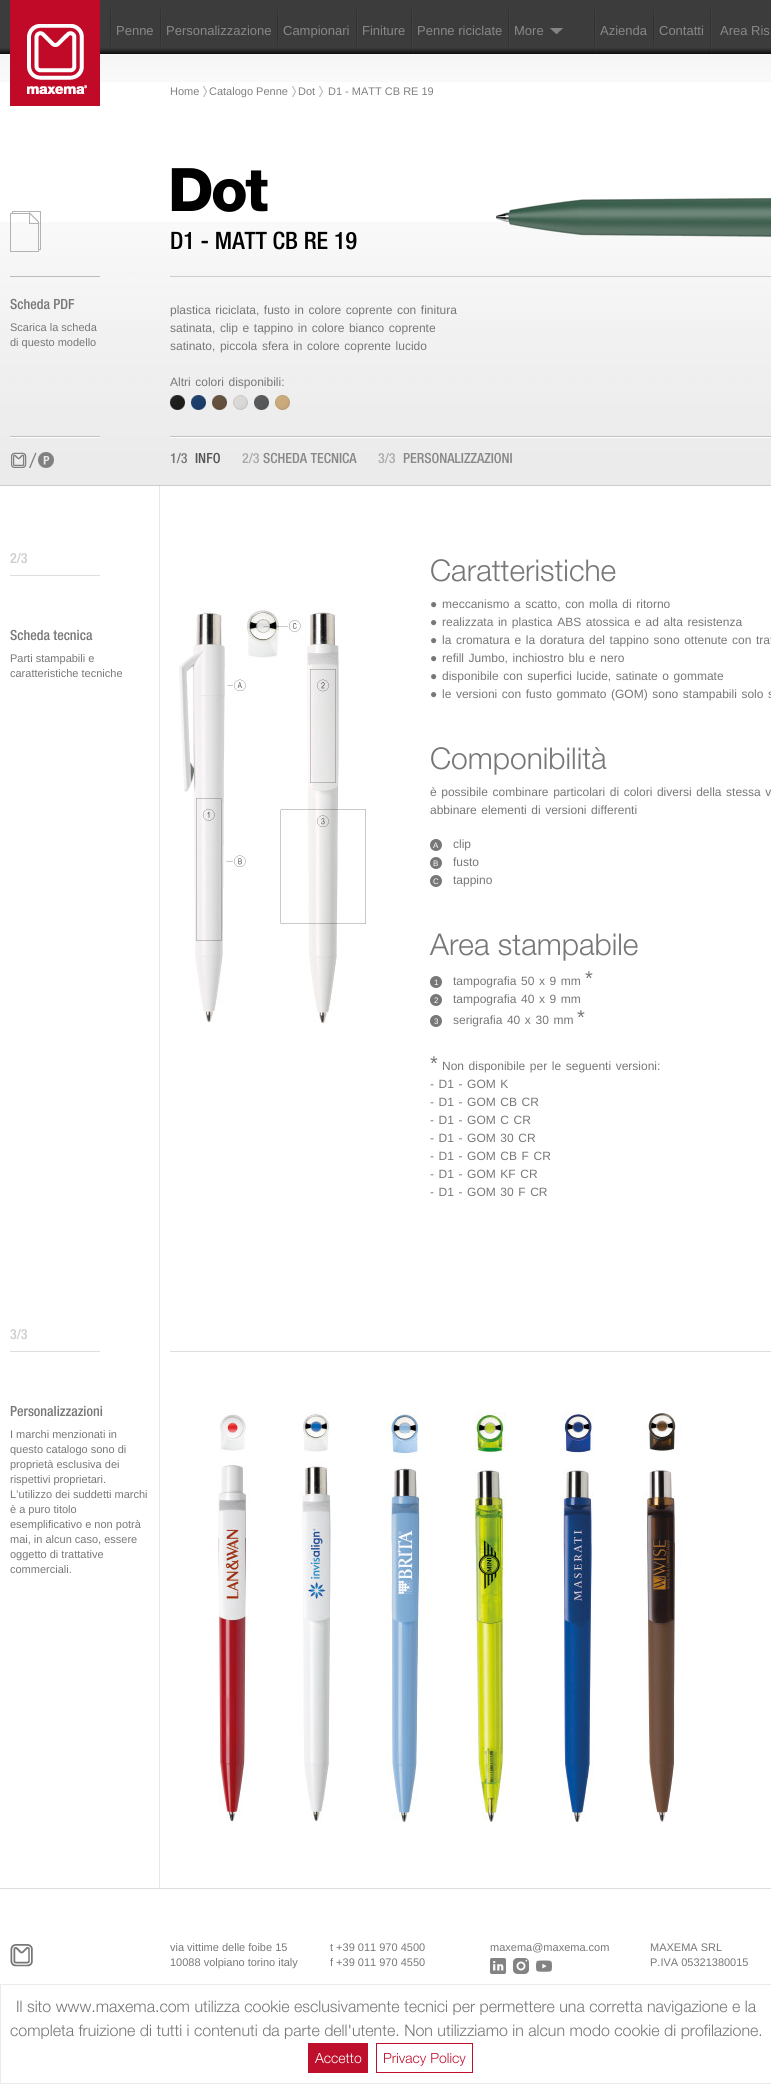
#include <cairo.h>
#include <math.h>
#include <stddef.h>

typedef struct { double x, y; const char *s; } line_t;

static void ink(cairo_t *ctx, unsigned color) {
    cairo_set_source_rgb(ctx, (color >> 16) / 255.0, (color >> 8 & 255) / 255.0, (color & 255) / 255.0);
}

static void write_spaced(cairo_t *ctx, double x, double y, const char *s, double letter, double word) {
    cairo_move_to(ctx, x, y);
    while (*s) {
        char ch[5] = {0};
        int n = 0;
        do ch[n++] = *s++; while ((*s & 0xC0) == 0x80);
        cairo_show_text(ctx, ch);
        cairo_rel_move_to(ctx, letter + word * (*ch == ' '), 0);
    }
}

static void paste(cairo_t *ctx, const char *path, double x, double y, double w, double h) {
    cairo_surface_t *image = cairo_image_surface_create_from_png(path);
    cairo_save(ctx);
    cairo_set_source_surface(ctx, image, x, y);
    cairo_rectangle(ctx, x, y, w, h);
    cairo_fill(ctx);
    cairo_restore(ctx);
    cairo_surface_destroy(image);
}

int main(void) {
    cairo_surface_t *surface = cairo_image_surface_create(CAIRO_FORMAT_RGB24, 771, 2084);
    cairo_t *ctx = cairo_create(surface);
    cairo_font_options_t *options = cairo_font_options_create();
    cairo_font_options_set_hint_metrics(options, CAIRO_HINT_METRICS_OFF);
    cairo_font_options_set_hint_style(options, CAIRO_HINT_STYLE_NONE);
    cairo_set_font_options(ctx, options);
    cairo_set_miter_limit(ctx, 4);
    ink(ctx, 0xFFFFFF);
    cairo_paint(ctx);
    ink(ctx, 0x3C3C3C);
    cairo_rectangle(ctx, 0, 0, 771, 54);
    cairo_fill(ctx);
    paste(ctx, "media/2.png", 0, 48, 771, 6);
    paste(ctx, "media/6.png", 0, 54, 771, 28);
    paste(ctx, "media/1.png", 10, 0, 90, 106);
    paste(ctx, "media/3.png", 110, 5, 2, 44);
    cairo_select_font_face(ctx, "Liberation Sans", CAIRO_FONT_SLANT_NORMAL, CAIRO_FONT_WEIGHT_NORMAL);
    cairo_set_font_size(ctx, 13);
    ink(ctx, 0x888888);
    cairo_move_to(ctx, 116, 35);
    cairo_show_text(ctx, "Penne");
    paste(ctx, "media/4.png", 160, 5, 2, 49);
    cairo_move_to(ctx, 166, 35);
    cairo_show_text(ctx, "Personalizzazione");
    paste(ctx, "media/3.png", 277, 5, 2, 44);
    cairo_move_to(ctx, 283, 35);
    cairo_show_text(ctx, "Campionari");
    paste(ctx, "media/4.png", 356, 5, 2, 49);
    cairo_move_to(ctx, 362, 35);
    cairo_show_text(ctx, "Finiture");
    paste(ctx, "media/4.png", 411, 5, 2, 49);
    cairo_move_to(ctx, 417, 35);
    cairo_show_text(ctx, "Penne riciclate");
    paste(ctx, "media/4.png", 508, 5, 2, 49);
    cairo_move_to(ctx, 514, 35);
    cairo_show_text(ctx, "More");
    paste(ctx, "media/5.png", 550, 28, 13, 6);
    paste(ctx, "media/4.png", 594, 5, 2, 49);
    cairo_move_to(ctx, 600, 35);
    cairo_show_text(ctx, "Azienda");
    paste(ctx, "media/3.png", 653, 5, 2, 44);
    cairo_move_to(ctx, 659, 35);
    cairo_show_text(ctx, "Contatti");
    paste(ctx, "media/4.png", 710, 5, 2, 49);
    cairo_move_to(ctx, 720, 35);
    cairo_show_text(ctx, "Area Ris");
    ink(ctx, 0xE7E7E7);
    cairo_rectangle(ctx, 159, 485, 1, 1403);
    cairo_fill(ctx);
    ink(ctx, 0xCCCCCC);
    cairo_rectangle(ctx, 0, 485, 771, 1);
    cairo_fill(ctx);
    cairo_set_font_size(ctx, 11);
    ink(ctx, 0x808080);
    cairo_move_to(ctx, 170, 95);
    cairo_show_text(ctx, "Home");
    paste(ctx, "media/7.png", 203, 86, 4, 11);
    cairo_move_to(ctx, 209, 95);
    cairo_show_text(ctx, "Catalogo Penne");
    paste(ctx, "media/7.png", 292, 86, 4, 11);
    cairo_move_to(ctx, 298, 95);
    cairo_show_text(ctx, "Dot");
    paste(ctx, "media/7.png", 319, 86, 4, 11);
    cairo_move_to(ctx, 328, 95);
    cairo_show_text(ctx, "D1 - MATT CB RE 19");
    cairo_select_font_face(ctx, "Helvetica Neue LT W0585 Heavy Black", CAIRO_FONT_SLANT_NORMAL, CAIRO_FONT_WEIGHT_NORMAL);
    cairo_set_font_size(ctx, 60);
    ink(ctx, 0x000000);
    write_spaced(ctx, 168, 211, "Dot", -2.5, 0);
    paste(ctx, "media/15.png", 496, 197, 275, 40);
    paste(ctx, "media/16.png", 0, 222, 771, 263);
    cairo_select_font_face(ctx, "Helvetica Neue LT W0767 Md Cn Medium", CAIRO_FONT_SLANT_NORMAL, CAIRO_FONT_WEIGHT_NORMAL);
    cairo_set_font_size(ctx, 24);
    cairo_move_to(ctx, 170, 249);
    cairo_show_text(ctx, "D1 - MATT CB RE 19");
    ink(ctx, 0xCCCCCC);
    cairo_rectangle(ctx, 170, 276, 601, 1);
    cairo_fill(ctx);
    paste(ctx, "media/8.png", 10, 211, 31, 41);
    ink(ctx, 0xBBBBBB);
    cairo_rectangle(ctx, 10, 276, 90, 1);
    cairo_fill(ctx);
    cairo_set_font_size(ctx, 14);
    ink(ctx, 0x777777);
    cairo_move_to(ctx, 10, 309);
    cairo_show_text(ctx, "Scheda PDF");
    cairo_select_font_face(ctx, "Liberation Sans", CAIRO_FONT_SLANT_NORMAL, CAIRO_FONT_WEIGHT_NORMAL);
    cairo_set_font_size(ctx, 11);
    cairo_move_to(ctx, 10, 331);
    cairo_show_text(ctx, "Scarica la scheda");
    cairo_move_to(ctx, 10, 346);
    cairo_show_text(ctx, "di questo modello");
    cairo_set_font_size(ctx, 12);
    {
        static const line_t items[] = {
            {170, 314, "plastica riciclata, fusto in colore coprente con finitura"},
            {170, 332, "satinata, clip e tappino in colore bianco coprente"},
            {170, 350, "satinato, piccola sfera in colore coprente lucido"},
            {170, 386, "Altri colori disponibili:"},
        };
        for (size_t i = 0; i < sizeof items / sizeof *items; i++) {
            write_spaced(ctx, items[i].x, items[i].y, items[i].s, 0, 1.25);
        }
    }
    ink(ctx, 0x1D1E1B);
    cairo_rectangle(ctx, 170, 395, 15, 15);
    cairo_fill(ctx);
    paste(ctx, "media/9.png", 170, 395, 15, 15);
    ink(ctx, 0x1B3D69);
    cairo_rectangle(ctx, 191, 395, 15, 15);
    cairo_fill(ctx);
    paste(ctx, "media/10.png", 191, 395, 15, 15);
    ink(ctx, 0x64503E);
    cairo_rectangle(ctx, 212, 395, 15, 15);
    cairo_fill(ctx);
    paste(ctx, "media/11.png", 212, 395, 15, 15);
    ink(ctx, 0xDBD9D7);
    cairo_rectangle(ctx, 233, 395, 15, 15);
    cairo_fill(ctx);
    paste(ctx, "media/12.png", 233, 395, 15, 15);
    ink(ctx, 0x555759);
    cairo_rectangle(ctx, 254, 395, 15, 15);
    cairo_fill(ctx);
    paste(ctx, "media/13.png", 254, 395, 15, 15);
    ink(ctx, 0xCAAA7B);
    cairo_rectangle(ctx, 275, 395, 15, 15);
    cairo_fill(ctx);
    paste(ctx, "media/14.png", 275, 395, 15, 15);
    paste(ctx, "media/17.png", 10, 436, 90, 2);
    paste(ctx, "media/18.png", 11, 452, 43, 16);
    paste(ctx, "media/19.png", 170, 436, 601, 2);
    cairo_select_font_face(ctx, "Helvetica Neue LT W0767 Md Cn Medium", CAIRO_FONT_SLANT_NORMAL, CAIRO_FONT_WEIGHT_NORMAL);
    cairo_set_font_size(ctx, 14);
    ink(ctx, 0x777777);
    cairo_move_to(ctx, 170, 463);
    cairo_show_text(ctx, "1/3");
    ink(ctx, 0x555555);
    cairo_move_to(ctx, 195, 463);
    cairo_show_text(ctx, "INFO");
    ink(ctx, 0xAAAAAA);
    cairo_move_to(ctx, 242, 463);
    cairo_show_text(ctx, "2/3");
    ink(ctx, 0x888888);
    cairo_move_to(ctx, 263, 463);
    cairo_show_text(ctx, "SCHEDA TECNICA");
    ink(ctx, 0xAAAAAA);
    cairo_move_to(ctx, 378, 463);
    cairo_show_text(ctx, "3/3");
    ink(ctx, 0x888888);
    cairo_move_to(ctx, 403, 463);
    cairo_show_text(ctx, "PERSONALIZZAZIONI");
    ink(ctx, 0xDEDEDE);
    cairo_rectangle(ctx, 10, 575, 90, 1);
    cairo_fill(ctx);
    ink(ctx, 0xCCCCCC);
    cairo_move_to(ctx, 10, 563);
    cairo_show_text(ctx, "2/3");
    ink(ctx, 0x777777);
    cairo_move_to(ctx, 10, 640);
    cairo_show_text(ctx, "Scheda tecnica");
    cairo_select_font_face(ctx, "Liberation Sans", CAIRO_FONT_SLANT_NORMAL, CAIRO_FONT_WEIGHT_NORMAL);
    cairo_set_font_size(ctx, 11);
    cairo_move_to(ctx, 10, 662);
    cairo_show_text(ctx, "Parti stampabili e");
    cairo_move_to(ctx, 10, 677);
    cairo_show_text(ctx, "caratteristiche tecniche");
    paste(ctx, "media/20.png", 179, 607, 189, 416);
    cairo_select_font_face(ctx, "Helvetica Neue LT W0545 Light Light", CAIRO_FONT_SLANT_NORMAL, CAIRO_FONT_WEIGHT_NORMAL);
    cairo_set_font_size(ctx, 30);
    cairo_move_to(ctx, 430, 581);
    cairo_show_text(ctx, "Caratteristiche");
    cairo_select_font_face(ctx, "Liberation Sans", CAIRO_FONT_SLANT_NORMAL, CAIRO_FONT_WEIGHT_NORMAL);
    cairo_set_font_size(ctx, 12);
    cairo_move_to(ctx, 430, 608);
    cairo_show_text(ctx, "●");
    write_spaced(ctx, 442, 608, "meccanismo a scatto, con molla di ritorno", 0, 1.25);
    cairo_move_to(ctx, 430, 626);
    cairo_show_text(ctx, "●");
    write_spaced(ctx, 442, 626, "realizzata in plastica ABS atossica e ad alta resistenza", 0, 1.25);
    cairo_move_to(ctx, 430, 644);
    cairo_show_text(ctx, "●");
    write_spaced(ctx, 442, 644, "la cromatura e la doratura del tappino sono ottenute con trat", 0, 1.25);
    cairo_move_to(ctx, 430, 662);
    cairo_show_text(ctx, "●");
    write_spaced(ctx, 442, 662, "refill Jumbo, inchiostro blu e nero", 0, 1.25);
    cairo_move_to(ctx, 430, 680);
    cairo_show_text(ctx, "●");
    write_spaced(ctx, 442, 680, "disponibile con superfici lucide, satinate o gommate", 0, 1.25);
    cairo_move_to(ctx, 430, 698);
    cairo_show_text(ctx, "●");
    write_spaced(ctx, 442, 698, "le versioni con fusto gommato (GOM) sono stampabili solo s", 0, 1.25);
    cairo_select_font_face(ctx, "Helvetica Neue LT W0545 Light Light", CAIRO_FONT_SLANT_NORMAL, CAIRO_FONT_WEIGHT_NORMAL);
    cairo_set_font_size(ctx, 30);
    cairo_move_to(ctx, 430, 769);
    cairo_show_text(ctx, "Componibilità");
    cairo_select_font_face(ctx, "Liberation Sans", CAIRO_FONT_SLANT_NORMAL, CAIRO_FONT_WEIGHT_NORMAL);
    cairo_set_font_size(ctx, 12);
    write_spaced(ctx, 430, 796, "è possibile combinare particolari di colori diversi della stessa v", 0, 1.25);
    write_spaced(ctx, 430, 814, "abbinare elementi di versioni differenti", 0, 1.25);
    cairo_new_path(ctx);
    cairo_arc(ctx, 436, 845, 6, 0, 2 * M_PI);
    cairo_fill(ctx);
    cairo_set_font_size(ctx, 8);
    ink(ctx, 0xFFFFFF);
    cairo_move_to(ctx, 433, 848);
    cairo_show_text(ctx, "A");
    cairo_set_font_size(ctx, 12);
    ink(ctx, 0x777777);
    cairo_move_to(ctx, 453, 848);
    cairo_show_text(ctx, "clip");
    cairo_new_path(ctx);
    cairo_arc(ctx, 436, 863, 6, 0, 2 * M_PI);
    cairo_fill(ctx);
    cairo_set_font_size(ctx, 8);
    ink(ctx, 0xFFFFFF);
    cairo_move_to(ctx, 433, 866);
    cairo_show_text(ctx, "B");
    cairo_set_font_size(ctx, 12);
    ink(ctx, 0x777777);
    cairo_move_to(ctx, 453, 866);
    cairo_show_text(ctx, "fusto");
    cairo_new_path(ctx);
    cairo_arc(ctx, 436, 881, 6, 0, 2 * M_PI);
    cairo_fill(ctx);
    cairo_set_font_size(ctx, 8);
    ink(ctx, 0xFFFFFF);
    cairo_move_to(ctx, 433, 884);
    cairo_show_text(ctx, "C");
    cairo_set_font_size(ctx, 12);
    ink(ctx, 0x777777);
    cairo_move_to(ctx, 453, 884);
    cairo_show_text(ctx, "tappino");
    cairo_select_font_face(ctx, "Helvetica Neue LT W0545 Light Light", CAIRO_FONT_SLANT_NORMAL, CAIRO_FONT_WEIGHT_NORMAL);
    cairo_set_font_size(ctx, 30);
    cairo_move_to(ctx, 430, 955);
    cairo_show_text(ctx, "Area stampabile");
    cairo_select_font_face(ctx, "Liberation Sans", CAIRO_FONT_SLANT_NORMAL, CAIRO_FONT_WEIGHT_NORMAL);
    cairo_set_font_size(ctx, 20);
    cairo_move_to(ctx, 585, 985);
    cairo_show_text(ctx, "*");
    cairo_new_path(ctx);
    cairo_arc(ctx, 436, 982, 6, 0, 2 * M_PI);
    cairo_fill(ctx);
    cairo_set_font_size(ctx, 8);
    ink(ctx, 0xFFFFFF);
    cairo_move_to(ctx, 434, 985);
    cairo_show_text(ctx, "1");
    cairo_set_font_size(ctx, 12);
    ink(ctx, 0x777777);
    write_spaced(ctx, 453, 985, "tampografia 50 x 9 mm", 0, 1.25);
    cairo_new_path(ctx);
    cairo_arc(ctx, 436, 1000, 6, 0, 2 * M_PI);
    cairo_fill(ctx);
    cairo_set_font_size(ctx, 8);
    ink(ctx, 0xFFFFFF);
    cairo_move_to(ctx, 434, 1003);
    cairo_show_text(ctx, "2");
    cairo_set_font_size(ctx, 12);
    ink(ctx, 0x777777);
    write_spaced(ctx, 453, 1003, "tampografia 40 x 9 mm", 0, 1.25);
    cairo_set_font_size(ctx, 20);
    cairo_move_to(ctx, 577, 1024);
    cairo_show_text(ctx, "*");
    cairo_new_path(ctx);
    cairo_arc(ctx, 436, 1021, 6, 0, 2 * M_PI);
    cairo_fill(ctx);
    cairo_set_font_size(ctx, 8);
    ink(ctx, 0xFFFFFF);
    cairo_move_to(ctx, 434, 1024);
    cairo_show_text(ctx, "3");
    cairo_set_font_size(ctx, 12);
    ink(ctx, 0x777777);
    write_spaced(ctx, 453, 1024, "serigrafia 40 x 30 mm", 0, 1.25);
    cairo_set_font_size(ctx, 20);
    cairo_move_to(ctx, 430, 1070);
    cairo_show_text(ctx, "*");
    cairo_set_font_size(ctx, 12);
    {
        static const line_t items[] = {
            {442, 1070, "Non disponibile per le seguenti versioni:"},
            {430, 1088, "- D1 - GOM K"},
            {430, 1106, "- D1 - GOM CB CR"},
            {430, 1124, "- D1 - GOM C CR"},
            {430, 1142, "- D1 - GOM 30 CR"},
            {430, 1160, "- D1 - GOM CB F CR"},
            {430, 1178, "- D1 - GOM KF CR"},
            {430, 1196, "- D1 - GOM 30 F CR"},
        };
        for (size_t i = 0; i < sizeof items / sizeof *items; i++) {
            write_spaced(ctx, items[i].x, items[i].y, items[i].s, 0, 1.25);
        }
    }
    ink(ctx, 0xDEDEDE);
    cairo_rectangle(ctx, 10, 1351, 90, 1);
    cairo_fill(ctx);
    cairo_select_font_face(ctx, "Helvetica Neue LT W0767 Md Cn Medium", CAIRO_FONT_SLANT_NORMAL, CAIRO_FONT_WEIGHT_NORMAL);
    cairo_set_font_size(ctx, 14);
    ink(ctx, 0xCCCCCC);
    cairo_move_to(ctx, 10, 1339);
    cairo_show_text(ctx, "3/3");
    ink(ctx, 0x777777);
    cairo_move_to(ctx, 10, 1416);
    cairo_show_text(ctx, "Personalizzazioni");
    cairo_select_font_face(ctx, "Liberation Sans", CAIRO_FONT_SLANT_NORMAL, CAIRO_FONT_WEIGHT_NORMAL);
    cairo_set_font_size(ctx, 11);
    {
        static const line_t items[] = {
            {10, 1438, "I marchi menzionati in"},
            {10, 1453, "questo catalogo sono di"},
            {10, 1468, "proprietà esclusiva dei"},
            {10, 1483, "rispettivi proprietari."},
            {10, 1498, "L’utilizzo dei suddetti marchi"},
            {10, 1513, "è a puro titolo"},
            {10, 1528, "esemplificativo e non potrà"},
            {10, 1543, "mai, in alcun caso, essere"},
            {10, 1558, "oggetto di trattative"},
            {10, 1573, "commerciali."},
        };
        for (size_t i = 0; i < sizeof items / sizeof *items; i++) {
            cairo_move_to(ctx, items[i].x, items[i].y);
            cairo_show_text(ctx, items[i].s);
        }
    }
    ink(ctx, 0xDEDEDE);
    cairo_rectangle(ctx, 170, 1351, 601, 1);
    cairo_fill(ctx);
    paste(ctx, "media/21.png", 218, 1412, 464, 413);
    cairo_rectangle(ctx, 0, 1888, 771, 1);
    cairo_fill(ctx);
    paste(ctx, "media/22.png", 10, 1944, 23, 23);
    ink(ctx, 0x777777);
    {
        static const line_t items[] = {
            {170, 1951, "via vittime delle foibe 15"},
            {170, 1966, "10088 volpiano torino italy"},
            {330, 1951, "t +39 011 970 4500"},
            {330, 1966, "f +39 011 970 4550"},
            {490, 1951, "maxema@maxema.com"},
        };
        for (size_t i = 0; i < sizeof items / sizeof *items; i++) {
            cairo_move_to(ctx, items[i].x, items[i].y);
            cairo_show_text(ctx, items[i].s);
        }
    }
    paste(ctx, "media/23.png", 490, 1958, 16, 16);
    paste(ctx, "media/24.png", 513, 1958, 16, 16);
    paste(ctx, "media/25.png", 536, 1960, 16, 12);
    cairo_move_to(ctx, 650, 1951);
    cairo_show_text(ctx, "MAXEMA SRL");
    cairo_move_to(ctx, 650, 1966);
    cairo_show_text(ctx, "P.IVA 05321380015");
    cairo_rectangle(ctx, 0.5, 1984.5, 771, 99);
    ink(ctx, 0xEBEBEB);
    cairo_set_line_width(ctx, 1);
    cairo_stroke(ctx);
    cairo_select_font_face(ctx, "Helvetica Neue LT W0545 Light Light", CAIRO_FONT_SLANT_NORMAL, CAIRO_FONT_WEIGHT_NORMAL);
    cairo_set_font_size(ctx, 16);
    ink(ctx, 0x777777);
    cairo_move_to(ctx, 16, 2012);
    cairo_show_text(ctx, "Il sito www.maxema.com utilizza cookie esclusivamente tecnici per permettere una corretta navigazione e la");
    cairo_move_to(ctx, 10, 2036);
    cairo_show_text(ctx, "completa fruizione di tutti i contenuti da parte dell'utente. Non utilizziamo in alcun modo cookie di profilazione.");
    ink(ctx, 0xBE102C);
    cairo_rectangle(ctx, 308, 2043, 60, 30);
    cairo_fill(ctx);
    cairo_set_font_size(ctx, 14);
    ink(ctx, 0xFFFFFF);
    cairo_move_to(ctx, 315, 2063);
    cairo_show_text(ctx, "Accetto");
    cairo_rectangle(ctx, 376.5, 2043.5, 96, 29);
    ink(ctx, 0xBE102C);
    cairo_stroke(ctx);
    cairo_move_to(ctx, 383, 2063);
    cairo_show_text(ctx, "Privacy Policy");
    cairo_surface_write_to_png(surface, "image.png");
    cairo_font_options_destroy(options);
    cairo_destroy(ctx);
    cairo_surface_destroy(surface);
    return 0;
}
